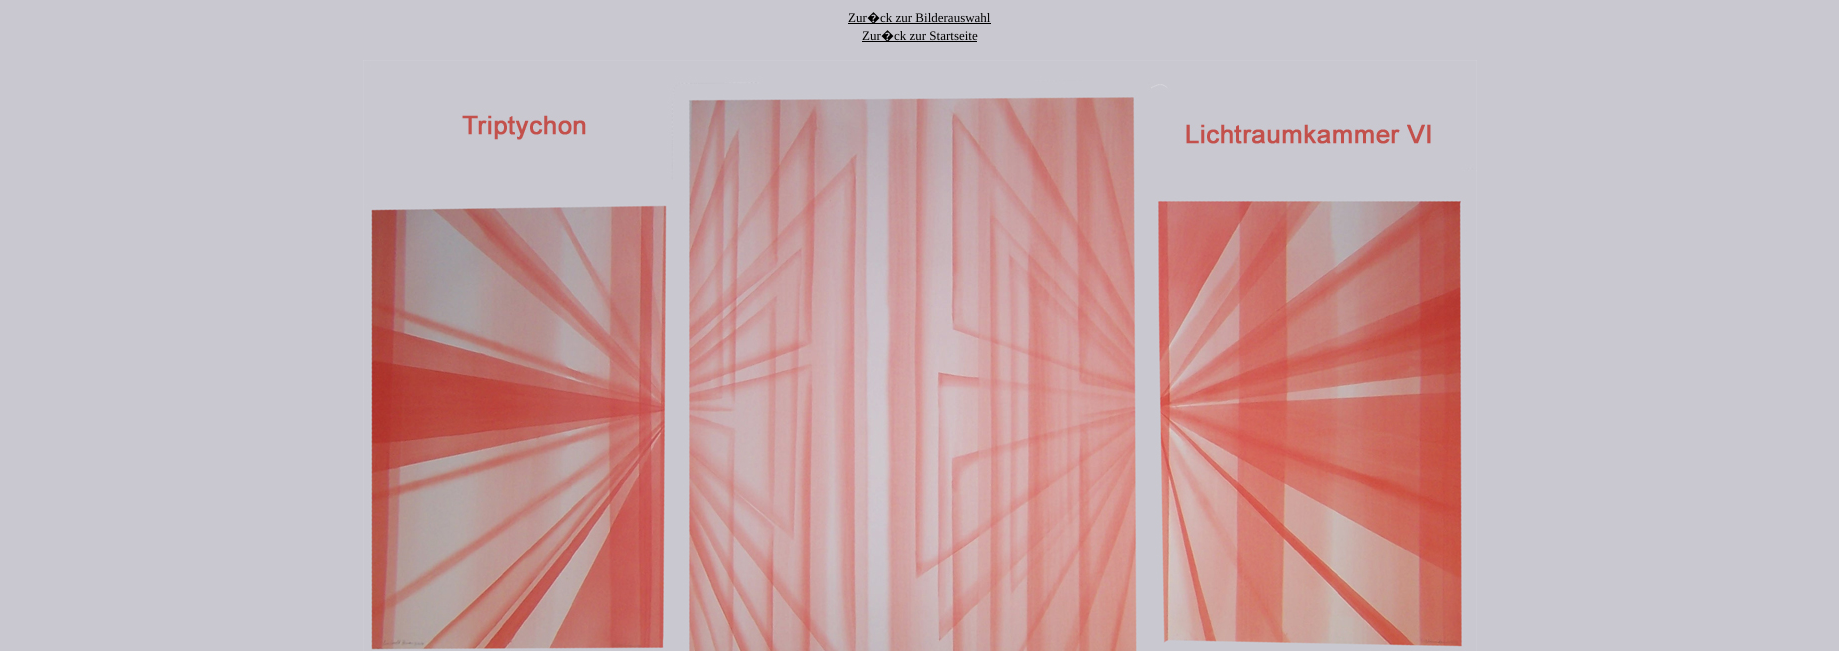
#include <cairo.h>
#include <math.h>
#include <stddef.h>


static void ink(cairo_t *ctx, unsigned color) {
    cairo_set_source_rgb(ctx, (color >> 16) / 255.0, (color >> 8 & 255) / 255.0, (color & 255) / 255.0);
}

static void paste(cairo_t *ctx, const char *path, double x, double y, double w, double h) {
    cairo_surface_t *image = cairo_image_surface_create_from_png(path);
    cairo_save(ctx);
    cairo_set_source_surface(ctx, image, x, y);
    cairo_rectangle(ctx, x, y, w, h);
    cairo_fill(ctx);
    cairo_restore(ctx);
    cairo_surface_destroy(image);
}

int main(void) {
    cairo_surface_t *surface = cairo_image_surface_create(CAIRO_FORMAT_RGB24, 1839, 651);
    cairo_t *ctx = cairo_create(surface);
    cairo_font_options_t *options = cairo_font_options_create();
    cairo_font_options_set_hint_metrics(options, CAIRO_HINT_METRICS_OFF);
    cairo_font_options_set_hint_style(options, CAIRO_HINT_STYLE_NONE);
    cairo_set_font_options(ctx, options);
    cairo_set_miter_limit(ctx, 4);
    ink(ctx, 0xC9C8D0);
    cairo_paint(ctx);
    cairo_select_font_face(ctx, "Liberation Serif", CAIRO_FONT_SLANT_NORMAL, CAIRO_FONT_WEIGHT_NORMAL);
    cairo_set_font_size(ctx, 13);
    ink(ctx, 0x000000);
    cairo_move_to(ctx, 848, 22);
    cairo_show_text(ctx, "Zur");
    cairo_rectangle(ctx, 848, 23, 143, 1);
    cairo_fill(ctx);
    cairo_select_font_face(ctx, "Noto Sans", CAIRO_FONT_SLANT_NORMAL, CAIRO_FONT_WEIGHT_NORMAL);
    cairo_move_to(ctx, 867, 22);
    cairo_show_text(ctx, "�");
    cairo_select_font_face(ctx, "Liberation Serif", CAIRO_FONT_SLANT_NORMAL, CAIRO_FONT_WEIGHT_NORMAL);
    cairo_move_to(ctx, 880, 22);
    cairo_show_text(ctx, "ck zur Bilderauswahl");
    cairo_move_to(ctx, 862, 40);
    cairo_show_text(ctx, "Zur");
    cairo_rectangle(ctx, 862, 41, 115, 1);
    cairo_fill(ctx);
    cairo_select_font_face(ctx, "Noto Sans", CAIRO_FONT_SLANT_NORMAL, CAIRO_FONT_WEIGHT_NORMAL);
    cairo_move_to(ctx, 881, 40);
    cairo_show_text(ctx, "�");
    cairo_select_font_face(ctx, "Liberation Serif", CAIRO_FONT_SLANT_NORMAL, CAIRO_FONT_WEIGHT_NORMAL);
    cairo_move_to(ctx, 894, 40);
    cairo_show_text(ctx, "ck zur Startseite");
    paste(ctx, "media/1.png", 363, 60, 1114, 591);
    cairo_surface_write_to_png(surface, "image.png");
    cairo_font_options_destroy(options);
    cairo_destroy(ctx);
    cairo_surface_destroy(surface);
    return 0;
}
